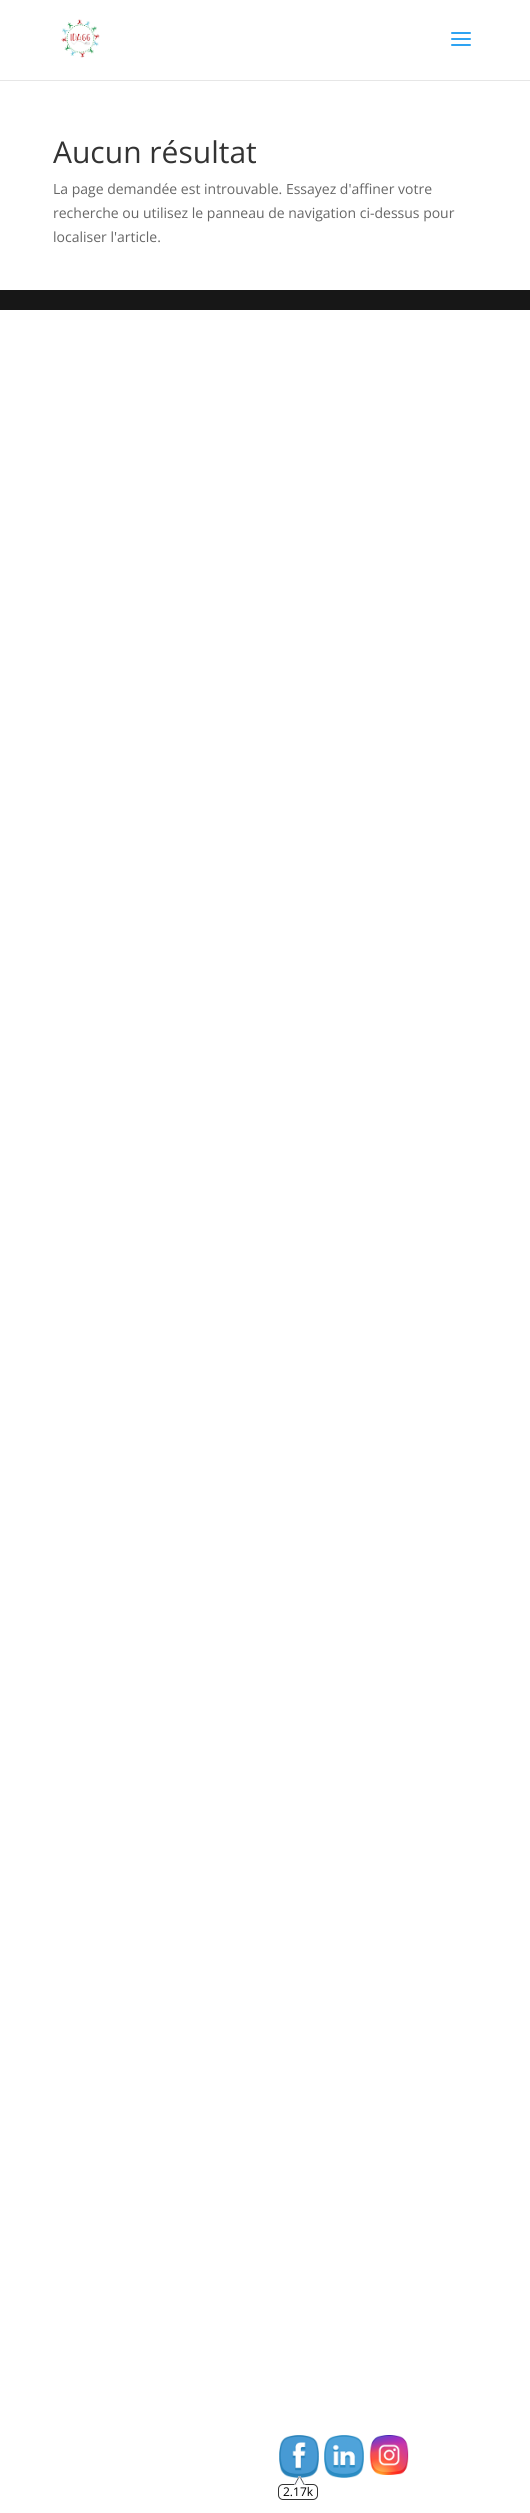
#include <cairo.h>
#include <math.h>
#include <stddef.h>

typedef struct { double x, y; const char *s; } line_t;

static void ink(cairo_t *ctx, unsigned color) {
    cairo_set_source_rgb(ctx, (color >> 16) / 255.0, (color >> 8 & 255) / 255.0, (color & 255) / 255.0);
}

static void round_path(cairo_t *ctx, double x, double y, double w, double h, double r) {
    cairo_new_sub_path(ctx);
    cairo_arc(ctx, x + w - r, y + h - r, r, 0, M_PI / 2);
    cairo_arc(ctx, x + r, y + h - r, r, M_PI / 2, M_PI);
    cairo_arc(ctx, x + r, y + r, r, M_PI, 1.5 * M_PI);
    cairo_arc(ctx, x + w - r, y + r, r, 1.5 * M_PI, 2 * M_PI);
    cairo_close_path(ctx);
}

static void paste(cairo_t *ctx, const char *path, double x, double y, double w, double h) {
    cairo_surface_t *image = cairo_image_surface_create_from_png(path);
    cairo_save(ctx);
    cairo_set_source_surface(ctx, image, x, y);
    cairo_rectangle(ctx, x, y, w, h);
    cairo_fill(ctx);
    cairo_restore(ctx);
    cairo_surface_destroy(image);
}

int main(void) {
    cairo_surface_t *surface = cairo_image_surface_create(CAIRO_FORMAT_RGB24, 530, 2513);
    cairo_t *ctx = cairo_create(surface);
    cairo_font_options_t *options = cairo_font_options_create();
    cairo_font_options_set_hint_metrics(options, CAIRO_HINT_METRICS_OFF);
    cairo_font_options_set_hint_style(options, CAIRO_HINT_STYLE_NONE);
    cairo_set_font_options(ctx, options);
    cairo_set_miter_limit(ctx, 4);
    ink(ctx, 0xFFFFFF);
    cairo_paint(ctx);
    ink(ctx, 0xE6E6E6);
    cairo_rectangle(ctx, 0, 80, 530, 1);
    cairo_fill(ctx);
    paste(ctx, "media/1.png", 61, 19, 39, 39);
    paste(ctx, "media/2.png", 451, 32, 20, 14);
    cairo_select_font_face(ctx, "Open Sans", CAIRO_FONT_SLANT_NORMAL, CAIRO_FONT_WEIGHT_NORMAL);
    cairo_set_font_size(ctx, 30);
    ink(ctx, 0x333333);
    cairo_move_to(ctx, 53, 163);
    cairo_show_text(ctx, "Aucun résultat");
    cairo_set_font_size(ctx, 14);
    ink(ctx, 0x666666);
    {
        static const line_t items[] = {
            {53, 194, "La page demandée est introuvable. Essayez d'affiner votre"},
            {53, 218, "recherche ou utilisez le panneau de navigation ci-dessus pour"},
            {53, 242, "localiser l'article."},
        };
        for (size_t i = 0; i < sizeof items / sizeof *items; i++) {
            cairo_move_to(ctx, items[i].x, items[i].y);
            cairo_show_text(ctx, items[i].s);
        }
    }
    ink(ctx, 0x171717);
    cairo_rectangle(ctx, 0, 290, 530, 20);
    cairo_fill(ctx);
    paste(ctx, "media/3.png", 324, 2435, 40, 43);
    paste(ctx, "media/4.png", 369, 2435, 40, 40);
    paste(ctx, "media/5.png", 279, 2435, 40, 43);
    round_path(ctx, 278.5, 2484.5, 39, 15, 4.5);
    ink(ctx, 0x333333);
    cairo_set_line_width(ctx, 1);
    cairo_stroke(ctx);
    paste(ctx, "media/6.png", 291, 2476, 15, 9);
    cairo_set_font_size(ctx, 12);
    ink(ctx, 0x000000);
    cairo_move_to(ctx, 283, 2496);
    cairo_show_text(ctx, "2.17k");
    cairo_surface_write_to_png(surface, "image.png");
    cairo_font_options_destroy(options);
    cairo_destroy(ctx);
    cairo_surface_destroy(surface);
    return 0;
}
